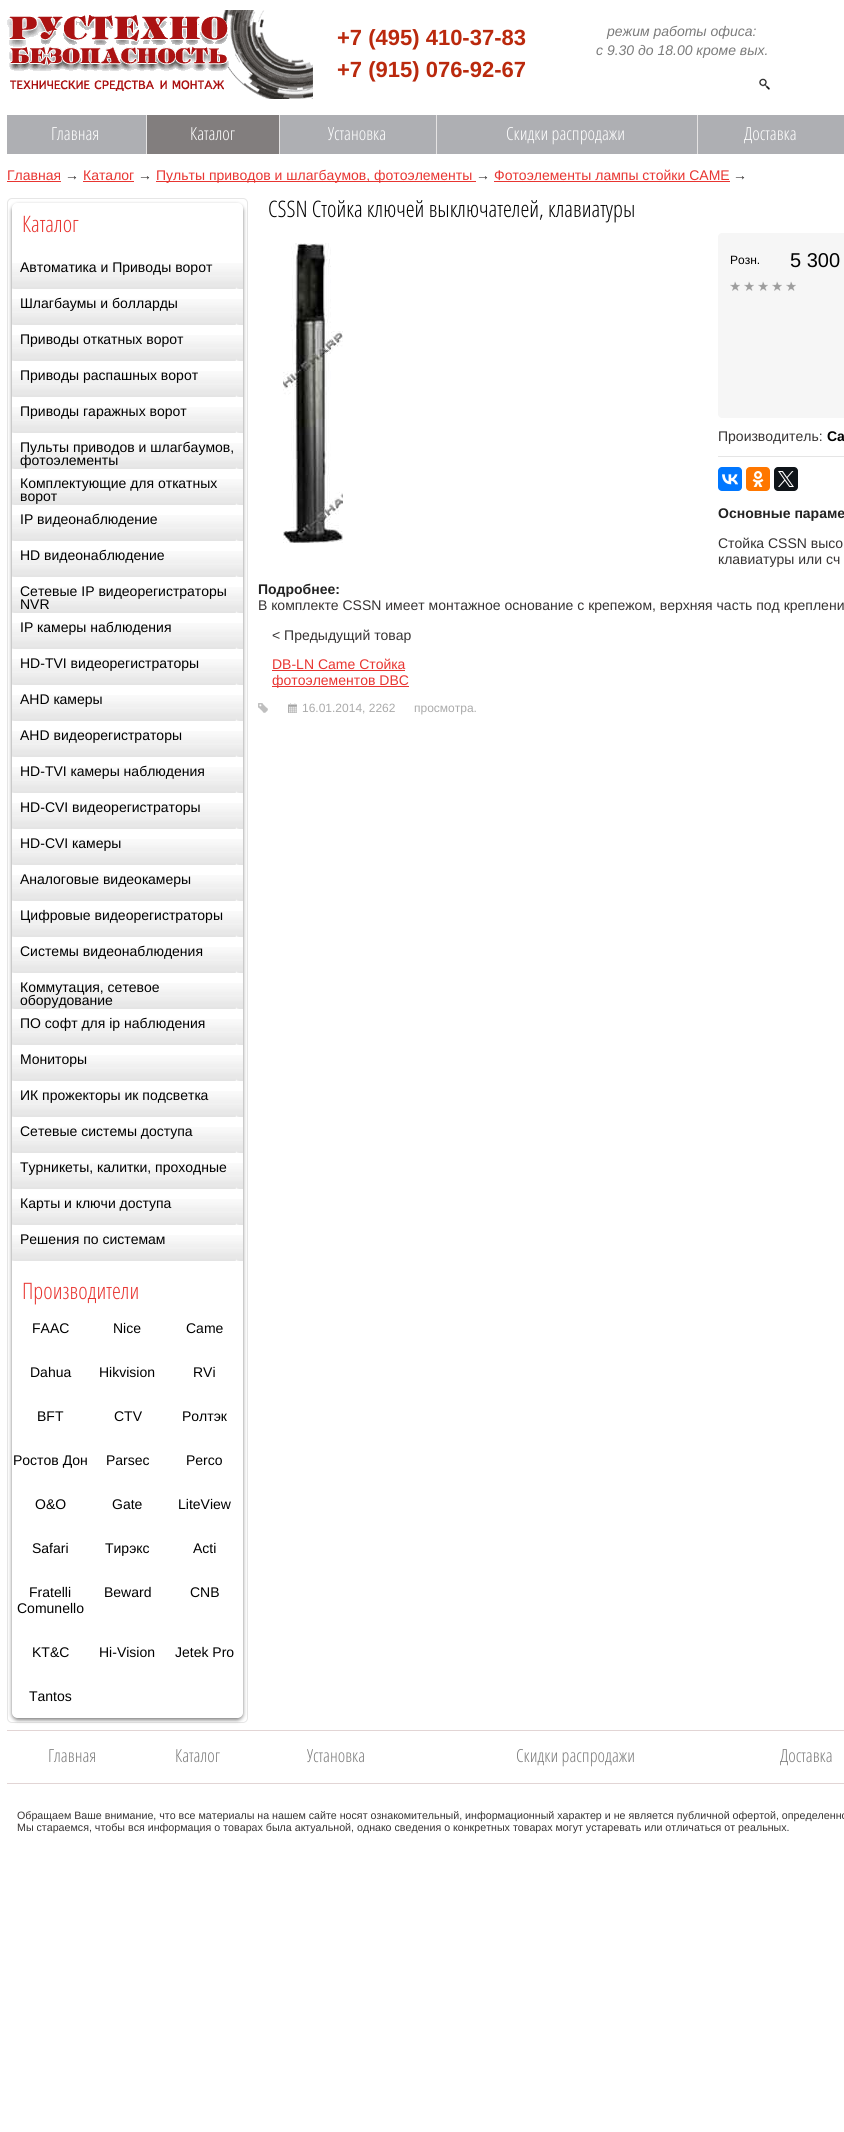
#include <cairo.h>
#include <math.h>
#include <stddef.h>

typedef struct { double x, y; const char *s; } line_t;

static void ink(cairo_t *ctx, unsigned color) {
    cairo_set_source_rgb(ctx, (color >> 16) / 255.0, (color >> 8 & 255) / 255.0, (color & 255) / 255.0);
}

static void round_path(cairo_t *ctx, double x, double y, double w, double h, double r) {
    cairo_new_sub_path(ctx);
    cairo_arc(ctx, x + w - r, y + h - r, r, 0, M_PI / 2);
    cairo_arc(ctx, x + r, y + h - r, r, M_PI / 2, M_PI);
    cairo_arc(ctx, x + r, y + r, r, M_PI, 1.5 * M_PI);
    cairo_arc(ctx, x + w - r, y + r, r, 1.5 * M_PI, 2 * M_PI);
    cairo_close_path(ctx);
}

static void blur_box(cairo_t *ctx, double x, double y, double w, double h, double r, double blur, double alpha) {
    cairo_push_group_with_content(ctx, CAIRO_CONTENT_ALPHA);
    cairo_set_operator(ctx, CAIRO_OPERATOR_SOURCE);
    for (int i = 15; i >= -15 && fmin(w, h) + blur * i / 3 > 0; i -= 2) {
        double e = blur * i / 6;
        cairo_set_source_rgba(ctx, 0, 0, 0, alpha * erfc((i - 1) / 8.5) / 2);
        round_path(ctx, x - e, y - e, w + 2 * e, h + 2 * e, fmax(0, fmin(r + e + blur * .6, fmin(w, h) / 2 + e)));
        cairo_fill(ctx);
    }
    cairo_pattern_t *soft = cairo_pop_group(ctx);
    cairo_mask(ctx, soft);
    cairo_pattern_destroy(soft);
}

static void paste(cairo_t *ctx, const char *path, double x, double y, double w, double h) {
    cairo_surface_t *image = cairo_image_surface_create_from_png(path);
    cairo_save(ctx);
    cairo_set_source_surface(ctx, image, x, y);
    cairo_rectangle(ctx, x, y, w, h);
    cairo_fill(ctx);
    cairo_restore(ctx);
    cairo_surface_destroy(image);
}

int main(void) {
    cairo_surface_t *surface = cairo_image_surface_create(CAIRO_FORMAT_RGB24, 844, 2132);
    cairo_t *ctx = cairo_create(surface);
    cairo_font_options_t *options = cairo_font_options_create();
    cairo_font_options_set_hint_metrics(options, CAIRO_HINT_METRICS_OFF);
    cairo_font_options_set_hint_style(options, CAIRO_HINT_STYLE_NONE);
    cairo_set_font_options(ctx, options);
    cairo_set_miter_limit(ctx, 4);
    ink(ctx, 0xFFFFFF);
    cairo_paint(ctx);
    paste(ctx, "media/1.png", 7, 10, 306, 89);
    cairo_select_font_face(ctx, "Liberation Sans", CAIRO_FONT_SLANT_NORMAL, CAIRO_FONT_WEIGHT_BOLD);
    cairo_set_font_size(ctx, 22);
    ink(ctx, 0xBA290D);
    cairo_move_to(ctx, 337, 45);
    cairo_show_text(ctx, "+7 (495) 410-37-83");
    cairo_move_to(ctx, 337, 77);
    cairo_show_text(ctx, "+7 (915) 076-92-67");
    cairo_select_font_face(ctx, "Liberation Sans", CAIRO_FONT_SLANT_ITALIC, CAIRO_FONT_WEIGHT_NORMAL);
    cairo_set_font_size(ctx, 14);
    ink(ctx, 0x7B7B7B);
    cairo_move_to(ctx, 607, 36);
    cairo_show_text(ctx, "режим работы офиса:");
    cairo_move_to(ctx, 596, 55);
    cairo_show_text(ctx, "с 9.30 до 18.00 кроме вых.");
    paste(ctx, "media/2.png", 759, 78, 11, 12);
    ink(ctx, 0xAEAFB3);
    cairo_rectangle(ctx, 7, 115, 139, 39);
    cairo_fill(ctx);
    ink(ctx, 0xE5E3E3);
    cairo_rectangle(ctx, 146, 115, 1, 39);
    cairo_fill(ctx);
    cairo_select_font_face(ctx, "Open Sans Light", CAIRO_FONT_SLANT_NORMAL, CAIRO_FONT_WEIGHT_NORMAL);
    cairo_set_font_size(ctx, 18);
    ink(ctx, 0xFFFFFF);
    cairo_move_to(ctx, 51, 140);
    cairo_show_text(ctx, "Главная");
    ink(ctx, 0x827E7E);
    cairo_rectangle(ctx, 147, 115, 132, 39);
    cairo_fill(ctx);
    ink(ctx, 0xE4E2E2);
    cairo_rectangle(ctx, 279, 115, 1, 39);
    cairo_fill(ctx);
    ink(ctx, 0xFFFFFF);
    cairo_move_to(ctx, 190, 140);
    cairo_show_text(ctx, "Каталог");
    ink(ctx, 0xAEAFB3);
    cairo_rectangle(ctx, 280, 115, 156, 39);
    cairo_fill(ctx);
    ink(ctx, 0xE5E3E3);
    cairo_rectangle(ctx, 436, 115, 1, 39);
    cairo_fill(ctx);
    ink(ctx, 0xFFFFFF);
    cairo_move_to(ctx, 328, 140);
    cairo_show_text(ctx, "Установка");
    ink(ctx, 0xAEAFB3);
    cairo_rectangle(ctx, 437, 115, 260, 39);
    cairo_fill(ctx);
    ink(ctx, 0xE5E3E3);
    cairo_rectangle(ctx, 697, 115, 1, 39);
    cairo_fill(ctx);
    ink(ctx, 0xFFFFFF);
    cairo_move_to(ctx, 506, 140);
    cairo_show_text(ctx, "Скидки распродажи");
    ink(ctx, 0xAEAFB3);
    cairo_rectangle(ctx, 698, 115, 146, 39);
    cairo_fill(ctx);
    ink(ctx, 0xFFFFFF);
    cairo_move_to(ctx, 744, 140);
    cairo_show_text(ctx, "Доставка");
    cairo_select_font_face(ctx, "Liberation Sans", CAIRO_FONT_SLANT_NORMAL, CAIRO_FONT_WEIGHT_NORMAL);
    cairo_set_font_size(ctx, 14);
    ink(ctx, 0xE83531);
    cairo_move_to(ctx, 7, 180);
    cairo_show_text(ctx, "Главная");
    cairo_rectangle(ctx, 7, 181, 54, 1);
    cairo_fill(ctx);
    ink(ctx, 0x363333);
    cairo_move_to(ctx, 65, 180);
    cairo_show_text(ctx, "→");
    ink(ctx, 0xE83531);
    cairo_move_to(ctx, 83, 180);
    cairo_show_text(ctx, "Каталог");
    cairo_rectangle(ctx, 83, 181, 51, 1);
    cairo_fill(ctx);
    ink(ctx, 0x363333);
    cairo_move_to(ctx, 138, 180);
    cairo_show_text(ctx, "→");
    ink(ctx, 0xE83531);
    cairo_rectangle(ctx, 156, 181, 320, 1);
    cairo_fill(ctx);
    cairo_move_to(ctx, 156, 180);
    cairo_show_text(ctx, "Пульты приводов и шлагбаумов, фотоэлементы");
    ink(ctx, 0x363333);
    cairo_move_to(ctx, 476, 180);
    cairo_show_text(ctx, "→");
    ink(ctx, 0xE83531);
    cairo_move_to(ctx, 494, 180);
    cairo_show_text(ctx, "Фотоэлементы лампы стойки CAME");
    cairo_rectangle(ctx, 494, 181, 236, 1);
    cairo_fill(ctx);
    ink(ctx, 0x363333);
    cairo_move_to(ctx, 733, 180);
    cairo_show_text(ctx, "→");
    round_path(ctx, 7.5, 198.5, 240, 1524, 4.5);
    ink(ctx, 0xE6E6E6);
    cairo_set_line_width(ctx, 1);
    cairo_stroke(ctx);
    cairo_save(ctx);
    cairo_set_fill_rule(ctx, CAIRO_FILL_RULE_EVEN_ODD);
    cairo_new_path(ctx);
    cairo_move_to(ctx, 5, 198);
    cairo_line_to(ctx, 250, 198);
    cairo_line_to(ctx, 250, 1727);
    cairo_line_to(ctx, 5, 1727);
    cairo_close_path(ctx);
    cairo_move_to(ctx, 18, 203);
    cairo_line_to(ctx, 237, 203);
    cairo_curve_to(ctx, 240.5, 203, 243, 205.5, 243, 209);
    cairo_line_to(ctx, 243, 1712);
    cairo_curve_to(ctx, 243, 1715.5, 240.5, 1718, 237, 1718);
    cairo_line_to(ctx, 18, 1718);
    cairo_curve_to(ctx, 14.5, 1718, 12, 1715.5, 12, 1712);
    cairo_line_to(ctx, 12, 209);
    cairo_curve_to(ctx, 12, 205.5, 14.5, 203, 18, 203);
    cairo_close_path(ctx);
    cairo_clip(ctx);
    ink(ctx, 0x808080);
    blur_box(ctx, 12, 205, 231, 1515, 6, 2, 1);
    cairo_restore(ctx);
    cairo_select_font_face(ctx, "Open Sans Light", CAIRO_FONT_SLANT_NORMAL, CAIRO_FONT_WEIGHT_NORMAL);
    cairo_set_font_size(ctx, 22.7);
    ink(ctx, 0xE83531);
    cairo_move_to(ctx, 22, 232);
    cairo_show_text(ctx, "Каталог");
    paste(ctx, "media/3.png", 12, 263, 231, 26);
    cairo_select_font_face(ctx, "Liberation Sans", CAIRO_FONT_SLANT_NORMAL, CAIRO_FONT_WEIGHT_NORMAL);
    cairo_set_font_size(ctx, 14);
    ink(ctx, 0x000000);
    cairo_move_to(ctx, 20, 272);
    cairo_show_text(ctx, "Автоматика и Приводы ворот");
    paste(ctx, "media/3.png", 12, 299, 231, 26);
    cairo_move_to(ctx, 20, 308);
    cairo_show_text(ctx, "Шлагбаумы и болларды");
    paste(ctx, "media/3.png", 12, 335, 231, 26);
    cairo_move_to(ctx, 20, 344);
    cairo_show_text(ctx, "Приводы откатных ворот");
    paste(ctx, "media/3.png", 12, 371, 231, 26);
    cairo_move_to(ctx, 20, 380);
    cairo_show_text(ctx, "Приводы распашных ворот");
    paste(ctx, "media/3.png", 12, 407, 231, 26);
    cairo_move_to(ctx, 20, 416);
    cairo_show_text(ctx, "Приводы гаражных ворот");
    paste(ctx, "media/3.png", 12, 443, 231, 26);
    cairo_move_to(ctx, 20, 452);
    cairo_show_text(ctx, "Пульты приводов и шлагбаумов,");
    cairo_move_to(ctx, 20, 465);
    cairo_show_text(ctx, "фотоэлементы");
    paste(ctx, "media/3.png", 12, 479, 231, 26);
    cairo_move_to(ctx, 20, 488);
    cairo_show_text(ctx, "Комплектующие для откатных");
    cairo_move_to(ctx, 20, 501);
    cairo_show_text(ctx, "ворот");
    paste(ctx, "media/3.png", 12, 515, 231, 26);
    cairo_move_to(ctx, 20, 524);
    cairo_show_text(ctx, "IP видеонаблюдение");
    paste(ctx, "media/3.png", 12, 551, 231, 26);
    cairo_move_to(ctx, 20, 560);
    cairo_show_text(ctx, "HD видеонаблюдениe");
    paste(ctx, "media/3.png", 12, 587, 231, 26);
    cairo_move_to(ctx, 20, 596);
    cairo_show_text(ctx, "Сетевые IP видеорегистраторы");
    cairo_move_to(ctx, 20, 609);
    cairo_show_text(ctx, "NVR");
    paste(ctx, "media/3.png", 12, 623, 231, 26);
    cairo_move_to(ctx, 20, 632);
    cairo_show_text(ctx, "IP камеры наблюдения");
    paste(ctx, "media/3.png", 12, 659, 231, 26);
    cairo_move_to(ctx, 20, 668);
    cairo_show_text(ctx, "HD-TVI видеорегистраторы");
    paste(ctx, "media/3.png", 12, 695, 231, 26);
    cairo_move_to(ctx, 20, 704);
    cairo_show_text(ctx, "AHD камеры");
    paste(ctx, "media/3.png", 12, 731, 231, 26);
    cairo_move_to(ctx, 20, 740);
    cairo_show_text(ctx, "AHD видеорегистраторы");
    paste(ctx, "media/3.png", 12, 767, 231, 26);
    cairo_move_to(ctx, 20, 776);
    cairo_show_text(ctx, "HD-TVI камеры наблюдения");
    paste(ctx, "media/3.png", 12, 803, 231, 26);
    cairo_move_to(ctx, 20, 812);
    cairo_show_text(ctx, "HD-CVI видеорегистраторы");
    paste(ctx, "media/3.png", 12, 839, 231, 26);
    cairo_move_to(ctx, 20, 848);
    cairo_show_text(ctx, "HD-CVI камеры");
    paste(ctx, "media/3.png", 12, 875, 231, 26);
    cairo_move_to(ctx, 20, 884);
    cairo_show_text(ctx, "Аналоговые видеокамеры");
    paste(ctx, "media/3.png", 12, 911, 231, 26);
    cairo_move_to(ctx, 20, 920);
    cairo_show_text(ctx, "Цифровые видеорегистраторы");
    paste(ctx, "media/3.png", 12, 947, 231, 26);
    cairo_move_to(ctx, 20, 956);
    cairo_show_text(ctx, "Системы видеонаблюдения");
    paste(ctx, "media/3.png", 12, 983, 231, 26);
    cairo_move_to(ctx, 20, 992);
    cairo_show_text(ctx, "Коммутация, сетевое");
    cairo_move_to(ctx, 20, 1005);
    cairo_show_text(ctx, "оборудование");
    paste(ctx, "media/3.png", 12, 1019, 231, 26);
    cairo_move_to(ctx, 20, 1028);
    cairo_show_text(ctx, "ПО софт для ip наблюдения");
    paste(ctx, "media/3.png", 12, 1055, 231, 26);
    cairo_move_to(ctx, 20, 1064);
    cairo_show_text(ctx, "Мониторы");
    paste(ctx, "media/3.png", 12, 1091, 231, 26);
    cairo_move_to(ctx, 20, 1100);
    cairo_show_text(ctx, "ИК прожекторы ик подсветка");
    paste(ctx, "media/3.png", 12, 1127, 231, 26);
    cairo_move_to(ctx, 20, 1136);
    cairo_show_text(ctx, "Сетевые системы доступа");
    paste(ctx, "media/3.png", 12, 1163, 231, 26);
    cairo_move_to(ctx, 20, 1172);
    cairo_show_text(ctx, "Турникеты, калитки, проходные");
    paste(ctx, "media/3.png", 12, 1199, 231, 26);
    cairo_move_to(ctx, 20, 1208);
    cairo_show_text(ctx, "Карты и ключи доступа");
    paste(ctx, "media/3.png", 12, 1235, 231, 26);
    cairo_move_to(ctx, 20, 1244);
    cairo_show_text(ctx, "Решения по системам");
    cairo_select_font_face(ctx, "Open Sans Light", CAIRO_FONT_SLANT_NORMAL, CAIRO_FONT_WEIGHT_NORMAL);
    cairo_set_font_size(ctx, 22.7);
    ink(ctx, 0xE83531);
    cairo_move_to(ctx, 22, 1299);
    cairo_show_text(ctx, "Производители");
    cairo_select_font_face(ctx, "Liberation Sans", CAIRO_FONT_SLANT_NORMAL, CAIRO_FONT_WEIGHT_NORMAL);
    cairo_set_font_size(ctx, 14);
    ink(ctx, 0x000000);
    {
        static const line_t items[] = {
            {32, 1333, "FAAC"},
            {113, 1333, "Nice"},
            {186, 1333, "Came"},
            {30, 1377, "Dahua"},
            {99, 1377, "Hikvision"},
            {193, 1377, "RVi"},
            {37, 1421, "BFT"},
            {114, 1421, "CTV"},
            {182, 1421, "Ролтэк"},
            {13, 1465, "Ростов Дон"},
            {106, 1465, "Parsec"},
            {186, 1465, "Perco"},
            {35, 1509, "O&O"},
            {112, 1509, "Gate"},
            {178, 1509, "LiteView"},
            {32, 1553, "Safari"},
            {105, 1553, "Тирэкс"},
            {193, 1553, "Acti"},
            {29, 1597, "Fratelli"},
            {17, 1613, "Comunello"},
            {104, 1597, "Beward"},
            {190, 1597, "CNB"},
            {32, 1657, "KT&C"},
            {99, 1657, "Hi-Vision"},
            {175, 1657, "Jetek Pro"},
            {29, 1701, "Tantos"},
        };
        for (size_t i = 0; i < sizeof items / sizeof *items; i++) {
            cairo_move_to(ctx, items[i].x, items[i].y);
            cairo_show_text(ctx, items[i].s);
        }
    }
    cairo_select_font_face(ctx, "Open Sans Light", CAIRO_FONT_SLANT_NORMAL, CAIRO_FONT_WEIGHT_NORMAL);
    cairo_set_font_size(ctx, 22.7);
    cairo_move_to(ctx, 268, 217);
    cairo_show_text(ctx, "CSSN Стойка ключей выключателей, клавиатуры");
    paste(ctx, "media/4.png", 283, 243, 60, 300);
    ink(ctx, 0xF6F6F6);
    round_path(ctx, 718, 233, 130, 185, 4);
    cairo_fill(ctx);
    cairo_select_font_face(ctx, "Liberation Sans", CAIRO_FONT_SLANT_NORMAL, CAIRO_FONT_WEIGHT_NORMAL);
    cairo_set_font_size(ctx, 12);
    ink(ctx, 0x000000);
    cairo_move_to(ctx, 730, 264);
    cairo_show_text(ctx, "Розн.");
    cairo_set_font_size(ctx, 20);
    cairo_move_to(ctx, 790, 267);
    cairo_show_text(ctx, "5 300");
    paste(ctx, "media/5.png", 730, 281, 10, 10);
    paste(ctx, "media/5.png", 744, 281, 10, 10);
    paste(ctx, "media/5.png", 758, 281, 10, 10);
    paste(ctx, "media/5.png", 772, 281, 10, 10);
    paste(ctx, "media/5.png", 786, 281, 10, 10);
    cairo_set_font_size(ctx, 14);
    ink(ctx, 0x363333);
    cairo_move_to(ctx, 718, 441);
    cairo_show_text(ctx, "Производитель:");
    cairo_select_font_face(ctx, "Liberation Sans", CAIRO_FONT_SLANT_NORMAL, CAIRO_FONT_WEIGHT_BOLD);
    ink(ctx, 0x000000);
    cairo_move_to(ctx, 827, 441);
    cairo_show_text(ctx, "Ca");
    ink(ctx, 0xE5E5E5);
    cairo_rectangle(ctx, 718, 456, 126, 1);
    cairo_fill(ctx);
    ink(ctx, 0x0077FF);
    round_path(ctx, 718, 467, 24, 24, 4);
    cairo_fill(ctx);
    paste(ctx, "media/6.png", 722, 474, 16, 11);
    ink(ctx, 0xFF7700);
    round_path(ctx, 746, 467, 24, 24, 4);
    cairo_fill(ctx);
    paste(ctx, "media/7.png", 752, 471, 12, 16);
    ink(ctx, 0x0F1419);
    round_path(ctx, 774, 467, 24, 24, 4);
    cairo_fill(ctx);
    paste(ctx, "media/8.png", 778, 471, 16, 16);
    ink(ctx, 0x222222);
    cairo_move_to(ctx, 718, 518);
    cairo_show_text(ctx, "Основные параме");
    cairo_select_font_face(ctx, "Liberation Sans", CAIRO_FONT_SLANT_NORMAL, CAIRO_FONT_WEIGHT_NORMAL);
    ink(ctx, 0x363333);
    cairo_move_to(ctx, 718, 548);
    cairo_show_text(ctx, "Стойка CSSN высо");
    cairo_move_to(ctx, 718, 564);
    cairo_show_text(ctx, "клавиатуры или сч");
    cairo_select_font_face(ctx, "Liberation Sans", CAIRO_FONT_SLANT_NORMAL, CAIRO_FONT_WEIGHT_BOLD);
    ink(ctx, 0x222222);
    cairo_move_to(ctx, 258, 594);
    cairo_show_text(ctx, "Подробнее:");
    cairo_select_font_face(ctx, "Liberation Sans", CAIRO_FONT_SLANT_NORMAL, CAIRO_FONT_WEIGHT_NORMAL);
    ink(ctx, 0x363333);
    cairo_move_to(ctx, 258, 610);
    cairo_show_text(ctx, "В комплекте CSSN имеет монтажное основание с крепежом, верхняя часть под креплени");
    cairo_move_to(ctx, 272, 640);
    cairo_show_text(ctx, "< Предыдущий товар");
    ink(ctx, 0xE83531);
    cairo_move_to(ctx, 272, 669);
    cairo_show_text(ctx, "DB-LN Came Стойка");
    cairo_rectangle(ctx, 272, 670, 133, 1);
    cairo_fill(ctx);
    cairo_rectangle(ctx, 272, 686, 137, 1);
    cairo_fill(ctx);
    cairo_move_to(ctx, 272, 685);
    cairo_show_text(ctx, "фотоэлементов DBC");
    paste(ctx, "media/9.png", 258, 703, 10, 10);
    paste(ctx, "media/10.png", 288, 703, 9, 10);
    cairo_set_font_size(ctx, 12);
    ink(ctx, 0xAAAAAA);
    cairo_move_to(ctx, 302, 712);
    cairo_show_text(ctx, "16.01.2014, 2262");
    cairo_move_to(ctx, 414, 712);
    cairo_show_text(ctx, "просмотра.");
    ink(ctx, 0xE2D5D5);
    cairo_rectangle(ctx, 7, 1730, 837, 1);
    cairo_fill(ctx);
    cairo_rectangle(ctx, 7, 1783, 837, 1);
    cairo_fill(ctx);
    cairo_select_font_face(ctx, "Open Sans Light", CAIRO_FONT_SLANT_NORMAL, CAIRO_FONT_WEIGHT_NORMAL);
    cairo_set_font_size(ctx, 18);
    ink(ctx, 0x7B7B7B);
    {
        static const line_t items[] = {
            {48, 1762, "Главная"},
            {175, 1762, "Каталог"},
            {307, 1762, "Установка"},
            {516, 1762, "Скидки распродажи"},
            {780, 1762, "Доставка"},
        };
        for (size_t i = 0; i < sizeof items / sizeof *items; i++) {
            cairo_move_to(ctx, items[i].x, items[i].y);
            cairo_show_text(ctx, items[i].s);
        }
    }
    cairo_select_font_face(ctx, "Liberation Sans", CAIRO_FONT_SLANT_NORMAL, CAIRO_FONT_WEIGHT_NORMAL);
    cairo_set_font_size(ctx, 10.67);
    ink(ctx, 0x363333);
    cairo_move_to(ctx, 17, 1819);
    cairo_show_text(ctx, "Обращаем Ваше внимание, что все материалы на нашем сайте носят ознакомительный, информационный характер и не является публичной офертой, определенно");
    cairo_move_to(ctx, 17, 1831);
    cairo_show_text(ctx, "Мы стараемся, чтобы вся информация о товарах была актуальной, однако сведения о конкретных товарах могут устаревать или отличаться от реальных.");
    cairo_surface_write_to_png(surface, "image.png");
    cairo_font_options_destroy(options);
    cairo_destroy(ctx);
    cairo_surface_destroy(surface);
    return 0;
}
